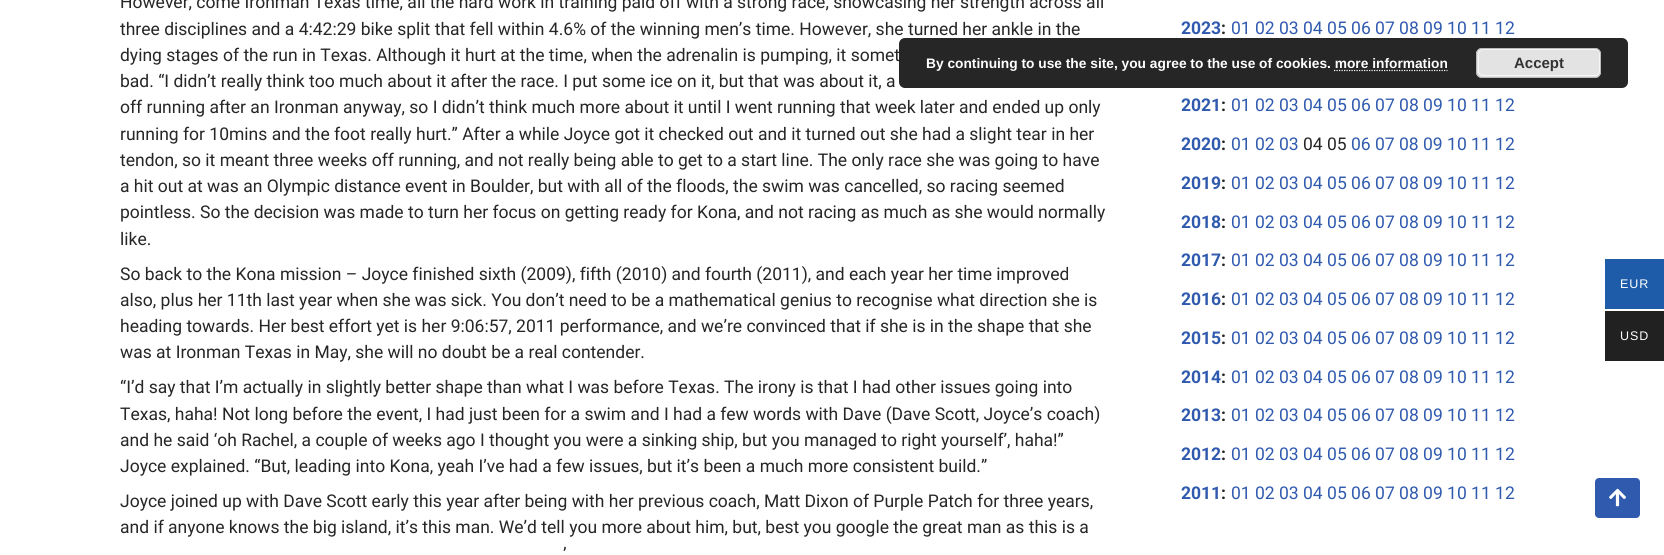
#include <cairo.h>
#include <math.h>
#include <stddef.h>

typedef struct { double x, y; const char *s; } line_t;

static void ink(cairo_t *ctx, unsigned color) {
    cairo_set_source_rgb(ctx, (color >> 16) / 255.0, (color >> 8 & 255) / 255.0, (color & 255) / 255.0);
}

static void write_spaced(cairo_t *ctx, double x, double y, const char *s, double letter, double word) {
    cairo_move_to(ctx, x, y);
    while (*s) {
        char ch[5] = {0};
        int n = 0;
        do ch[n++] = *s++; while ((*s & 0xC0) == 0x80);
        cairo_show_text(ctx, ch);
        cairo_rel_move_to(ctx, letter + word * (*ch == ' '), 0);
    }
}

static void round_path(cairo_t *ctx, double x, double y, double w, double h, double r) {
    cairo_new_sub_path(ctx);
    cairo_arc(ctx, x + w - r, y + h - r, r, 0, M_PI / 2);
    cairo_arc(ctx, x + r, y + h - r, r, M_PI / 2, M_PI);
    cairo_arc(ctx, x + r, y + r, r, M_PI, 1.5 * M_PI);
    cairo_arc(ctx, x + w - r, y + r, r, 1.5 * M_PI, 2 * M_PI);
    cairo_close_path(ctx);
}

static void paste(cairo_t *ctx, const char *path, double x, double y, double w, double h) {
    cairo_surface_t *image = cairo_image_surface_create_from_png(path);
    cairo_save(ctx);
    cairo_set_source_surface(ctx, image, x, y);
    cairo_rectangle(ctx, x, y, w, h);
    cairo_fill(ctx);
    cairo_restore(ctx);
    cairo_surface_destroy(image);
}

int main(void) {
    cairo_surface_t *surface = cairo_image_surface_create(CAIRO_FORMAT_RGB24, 1664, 555);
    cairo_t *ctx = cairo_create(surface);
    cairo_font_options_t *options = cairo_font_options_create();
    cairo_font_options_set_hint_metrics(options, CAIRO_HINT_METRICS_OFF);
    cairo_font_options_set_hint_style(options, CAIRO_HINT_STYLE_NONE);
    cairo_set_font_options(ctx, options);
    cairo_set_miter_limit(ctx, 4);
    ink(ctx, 0xFFFFFF);
    cairo_paint(ctx);
    cairo_select_font_face(ctx, "Roboto", CAIRO_FONT_SLANT_NORMAL, CAIRO_FONT_WEIGHT_NORMAL);
    cairo_set_font_size(ctx, 17.5);
    ink(ctx, 0x272626);
    {
        static const line_t items[] = {
            {120, 8, "However, come Ironman Texas time, all the hard work in training paid off with a strong race, showcasing her strength across all"},
            {120, 35, "three disciplines and a 4:42:29 bike split that fell within 4.6% of the winning men’s time. However, she turned her ankle in the"},
            {120, 61, "dying stages of the run in Texas. Although it hurt at the time, when the adrenalin is pumping, it somet"},
            {120, 87, "bad. “I didn’t really think too much about it after the race. I put some ice on it, but that was about it, a"},
            {120, 113, "off running after an Ironman anyway, so I didn’t think much more about it until I went running that week later and ended up only"},
            {120, 140, "running for 10mins and the foot really hurt.” After a while Joyce got it checked out and it turned out she had a slight tear in her"},
            {120, 166, "tendon, so it meant three weeks off running, and not really being able to get to a start line. The only race she was going to have"},
            {120, 192, "a hit out at was an Olympic distance event in Boulder, but with all of the floods, the swim was cancelled, so racing seemed"},
            {120, 218, "pointless. So the decision was made to turn her focus on getting ready for Kona, and not racing as much as she would normally"},
            {120, 245, "like."},
            {120, 280, "So back to the Kona mission – Joyce finished sixth (2009), fifth (2010) and fourth (2011), and each year her time improved"},
            {120, 306, "also, plus her 11th last year when she was sick. You don’t need to be a mathematical genius to recognise what direction she is"},
            {120, 332, "heading towards. Her best effort yet is her 9:06:57, 2011 performance, and we’re convinced that if she is in the shape that she"},
            {120, 358, "was at Ironman Texas in May, she will no doubt be a real contender."},
            {120, 393, "“I’d say that I’m actually in slightly better shape than what I was before Texas. The irony is that I had other issues going into"},
            {120, 420, "Texas, haha! Not long before the event, I had just been for a swim and I had a few words with Dave (Dave Scott, Joyce’s coach)"},
            {120, 446, "and he said ‘oh Rachel, a couple of weeks ago I thought you were a sinking ship, but you managed to right yourself’, haha!”"},
            {120, 472, "Joyce explained. “But, leading into Kona, yeah I’ve had a few issues, but it’s been a much more consistent build.”"},
            {120, 507, "Joyce joined up with Dave Scott early this year after being with her previous coach, Matt Dixon of Purple Patch for three years,"},
            {120, 533, "and if anyone knows the big island, it’s this man. We’d tell you more about him, but, best you google the great man as this is a"},
            {563, 560, "’"},
        };
        for (size_t i = 0; i < sizeof items / sizeof *items; i++) {
            cairo_move_to(ctx, items[i].x, items[i].y);
            cairo_show_text(ctx, items[i].s);
        }
    }
    cairo_select_font_face(ctx, "Roboto", CAIRO_FONT_SLANT_NORMAL, CAIRO_FONT_WEIGHT_BOLD);
    ink(ctx, 0x2F5AAE);
    cairo_move_to(ctx, 1181, 34);
    cairo_show_text(ctx, "2023");
    ink(ctx, 0x272626);
    cairo_move_to(ctx, 1221, 34);
    cairo_show_text(ctx, ":");
    cairo_select_font_face(ctx, "Roboto", CAIRO_FONT_SLANT_NORMAL, CAIRO_FONT_WEIGHT_NORMAL);
    ink(ctx, 0x2F5AAE);
    cairo_move_to(ctx, 1231, 34);
    cairo_show_text(ctx, "01 02 03 04 05 06 07 08 09 10 11 12");
    cairo_select_font_face(ctx, "Roboto", CAIRO_FONT_SLANT_NORMAL, CAIRO_FONT_WEIGHT_BOLD);
    cairo_move_to(ctx, 1181, 111);
    cairo_show_text(ctx, "2021");
    ink(ctx, 0x272626);
    cairo_move_to(ctx, 1221, 111);
    cairo_show_text(ctx, ":");
    cairo_select_font_face(ctx, "Roboto", CAIRO_FONT_SLANT_NORMAL, CAIRO_FONT_WEIGHT_NORMAL);
    ink(ctx, 0x2F5AAE);
    cairo_move_to(ctx, 1231, 111);
    cairo_show_text(ctx, "01 02 03 04 05 06 07 08 09 10 11 12");
    cairo_select_font_face(ctx, "Roboto", CAIRO_FONT_SLANT_NORMAL, CAIRO_FONT_WEIGHT_BOLD);
    cairo_move_to(ctx, 1181, 150);
    cairo_show_text(ctx, "2020");
    ink(ctx, 0x272626);
    cairo_move_to(ctx, 1221, 150);
    cairo_show_text(ctx, ":");
    cairo_select_font_face(ctx, "Roboto", CAIRO_FONT_SLANT_NORMAL, CAIRO_FONT_WEIGHT_NORMAL);
    ink(ctx, 0x2F5AAE);
    cairo_move_to(ctx, 1231, 150);
    cairo_show_text(ctx, "01 02 03");
    ink(ctx, 0x272626);
    cairo_move_to(ctx, 1303, 150);
    cairo_show_text(ctx, "04 05");
    ink(ctx, 0x2F5AAE);
    cairo_move_to(ctx, 1351, 150);
    cairo_show_text(ctx, "06 07 08 09 10 11 12");
    cairo_select_font_face(ctx, "Roboto", CAIRO_FONT_SLANT_NORMAL, CAIRO_FONT_WEIGHT_BOLD);
    cairo_move_to(ctx, 1181, 189);
    cairo_show_text(ctx, "2019");
    ink(ctx, 0x272626);
    cairo_move_to(ctx, 1221, 189);
    cairo_show_text(ctx, ":");
    cairo_select_font_face(ctx, "Roboto", CAIRO_FONT_SLANT_NORMAL, CAIRO_FONT_WEIGHT_NORMAL);
    ink(ctx, 0x2F5AAE);
    cairo_move_to(ctx, 1231, 189);
    cairo_show_text(ctx, "01 02 03 04 05 06 07 08 09 10 11 12");
    cairo_select_font_face(ctx, "Roboto", CAIRO_FONT_SLANT_NORMAL, CAIRO_FONT_WEIGHT_BOLD);
    cairo_move_to(ctx, 1181, 228);
    cairo_show_text(ctx, "2018");
    ink(ctx, 0x272626);
    cairo_move_to(ctx, 1221, 228);
    cairo_show_text(ctx, ":");
    cairo_select_font_face(ctx, "Roboto", CAIRO_FONT_SLANT_NORMAL, CAIRO_FONT_WEIGHT_NORMAL);
    ink(ctx, 0x2F5AAE);
    cairo_move_to(ctx, 1231, 228);
    cairo_show_text(ctx, "01 02 03 04 05 06 07 08 09 10 11 12");
    cairo_select_font_face(ctx, "Roboto", CAIRO_FONT_SLANT_NORMAL, CAIRO_FONT_WEIGHT_BOLD);
    cairo_move_to(ctx, 1181, 266);
    cairo_show_text(ctx, "2017");
    ink(ctx, 0x272626);
    cairo_move_to(ctx, 1221, 266);
    cairo_show_text(ctx, ":");
    cairo_select_font_face(ctx, "Roboto", CAIRO_FONT_SLANT_NORMAL, CAIRO_FONT_WEIGHT_NORMAL);
    ink(ctx, 0x2F5AAE);
    cairo_move_to(ctx, 1231, 266);
    cairo_show_text(ctx, "01 02 03 04 05 06 07 08 09 10 11 12");
    cairo_select_font_face(ctx, "Roboto", CAIRO_FONT_SLANT_NORMAL, CAIRO_FONT_WEIGHT_BOLD);
    cairo_move_to(ctx, 1181, 305);
    cairo_show_text(ctx, "2016");
    ink(ctx, 0x272626);
    cairo_move_to(ctx, 1221, 305);
    cairo_show_text(ctx, ":");
    cairo_select_font_face(ctx, "Roboto", CAIRO_FONT_SLANT_NORMAL, CAIRO_FONT_WEIGHT_NORMAL);
    ink(ctx, 0x2F5AAE);
    cairo_move_to(ctx, 1231, 305);
    cairo_show_text(ctx, "01 02 03 04 05 06 07 08 09 10 11 12");
    cairo_select_font_face(ctx, "Roboto", CAIRO_FONT_SLANT_NORMAL, CAIRO_FONT_WEIGHT_BOLD);
    cairo_move_to(ctx, 1181, 344);
    cairo_show_text(ctx, "2015");
    ink(ctx, 0x272626);
    cairo_move_to(ctx, 1221, 344);
    cairo_show_text(ctx, ":");
    cairo_select_font_face(ctx, "Roboto", CAIRO_FONT_SLANT_NORMAL, CAIRO_FONT_WEIGHT_NORMAL);
    ink(ctx, 0x2F5AAE);
    cairo_move_to(ctx, 1231, 344);
    cairo_show_text(ctx, "01 02 03 04 05 06 07 08 09 10 11 12");
    cairo_select_font_face(ctx, "Roboto", CAIRO_FONT_SLANT_NORMAL, CAIRO_FONT_WEIGHT_BOLD);
    cairo_move_to(ctx, 1181, 383);
    cairo_show_text(ctx, "2014");
    ink(ctx, 0x272626);
    cairo_move_to(ctx, 1221, 383);
    cairo_show_text(ctx, ":");
    cairo_select_font_face(ctx, "Roboto", CAIRO_FONT_SLANT_NORMAL, CAIRO_FONT_WEIGHT_NORMAL);
    ink(ctx, 0x2F5AAE);
    cairo_move_to(ctx, 1231, 383);
    cairo_show_text(ctx, "01 02 03 04 05 06 07 08 09 10 11 12");
    cairo_select_font_face(ctx, "Roboto", CAIRO_FONT_SLANT_NORMAL, CAIRO_FONT_WEIGHT_BOLD);
    cairo_move_to(ctx, 1181, 421);
    cairo_show_text(ctx, "2013");
    ink(ctx, 0x272626);
    cairo_move_to(ctx, 1221, 421);
    cairo_show_text(ctx, ":");
    cairo_select_font_face(ctx, "Roboto", CAIRO_FONT_SLANT_NORMAL, CAIRO_FONT_WEIGHT_NORMAL);
    ink(ctx, 0x2F5AAE);
    cairo_move_to(ctx, 1231, 421);
    cairo_show_text(ctx, "01 02 03 04 05 06 07 08 09 10 11 12");
    cairo_select_font_face(ctx, "Roboto", CAIRO_FONT_SLANT_NORMAL, CAIRO_FONT_WEIGHT_BOLD);
    cairo_move_to(ctx, 1181, 460);
    cairo_show_text(ctx, "2012");
    ink(ctx, 0x272626);
    cairo_move_to(ctx, 1221, 460);
    cairo_show_text(ctx, ":");
    cairo_select_font_face(ctx, "Roboto", CAIRO_FONT_SLANT_NORMAL, CAIRO_FONT_WEIGHT_NORMAL);
    ink(ctx, 0x2F5AAE);
    cairo_move_to(ctx, 1231, 460);
    cairo_show_text(ctx, "01 02 03 04 05 06 07 08 09 10 11 12");
    cairo_select_font_face(ctx, "Roboto", CAIRO_FONT_SLANT_NORMAL, CAIRO_FONT_WEIGHT_BOLD);
    cairo_move_to(ctx, 1181, 499);
    cairo_show_text(ctx, "2011");
    ink(ctx, 0x272626);
    cairo_move_to(ctx, 1221, 499);
    cairo_show_text(ctx, ":");
    cairo_select_font_face(ctx, "Roboto", CAIRO_FONT_SLANT_NORMAL, CAIRO_FONT_WEIGHT_NORMAL);
    ink(ctx, 0x2F5AAE);
    cairo_move_to(ctx, 1231, 499);
    cairo_show_text(ctx, "01 02 03 04 05 06 07 08 09 10 11 12");
    round_path(ctx, 1595, 478, 45, 40, 4);
    cairo_fill(ctx);
    paste(ctx, "media/1.png", 1609, 488, 17, 19);
    cairo_set_source_rgba(ctx, 0, 0, 0, 0.85);
    round_path(ctx, 899, 38, 729, 50, 6);
    cairo_fill(ctx);
    cairo_select_font_face(ctx, "Liberation Sans", CAIRO_FONT_SLANT_NORMAL, CAIRO_FONT_WEIGHT_BOLD);
    cairo_set_font_size(ctx, 13.75);
    ink(ctx, 0xFFFFFF);
    cairo_move_to(ctx, 926, 68);
    cairo_show_text(ctx, "By continuing to use the site, you agree to the use of cookies. more information");
    ink(ctx, 0xE3E3E3);
    round_path(ctx, 1476, 48, 125, 30, 6);
    cairo_fill(ctx);
    round_path(ctx, 1478.5, 49.5, 121, 26, 4.5);
    ink(ctx, 0xF6F6F6);
    cairo_set_line_width(ctx, 1);
    cairo_stroke(ctx);
    round_path(ctx, 1476.5, 48.5, 124, 29, 5.5);
    ink(ctx, 0xBBBBBB);
    cairo_stroke(ctx);
    cairo_set_font_size(ctx, 15);
    ink(ctx, 0x333333);
    cairo_move_to(ctx, 1514, 68);
    cairo_show_text(ctx, "Accept");
    cairo_new_path(ctx);
    cairo_move_to(ctx, 1334, 70.5);
    cairo_line_to(ctx, 1447.5, 70.5);
    ink(ctx, 0xFFFFFF);
    cairo_set_line_width(ctx, 1.2);
    cairo_set_dash(ctx, (double[]){1.25, 1.25}, 2, 0);
    cairo_stroke(ctx);
    ink(ctx, 0x1E5CAA);
    cairo_rectangle(ctx, 1605, 259, 59, 50);
    cairo_fill(ctx);
    cairo_select_font_face(ctx, "Liberation Sans", CAIRO_FONT_SLANT_NORMAL, CAIRO_FONT_WEIGHT_NORMAL);
    cairo_set_font_size(ctx, 12.5);
    ink(ctx, 0xFFFFFF);
    write_spaced(ctx, 1620, 288, "EUR", 1, 0);
    ink(ctx, 0x212121);
    cairo_rectangle(ctx, 1605, 311, 59, 50);
    cairo_fill(ctx);
    ink(ctx, 0xFFFFFF);
    write_spaced(ctx, 1620, 340, "USD", 1, 0);
    cairo_surface_write_to_png(surface, "image.png");
    cairo_font_options_destroy(options);
    cairo_destroy(ctx);
    cairo_surface_destroy(surface);
    return 0;
}
